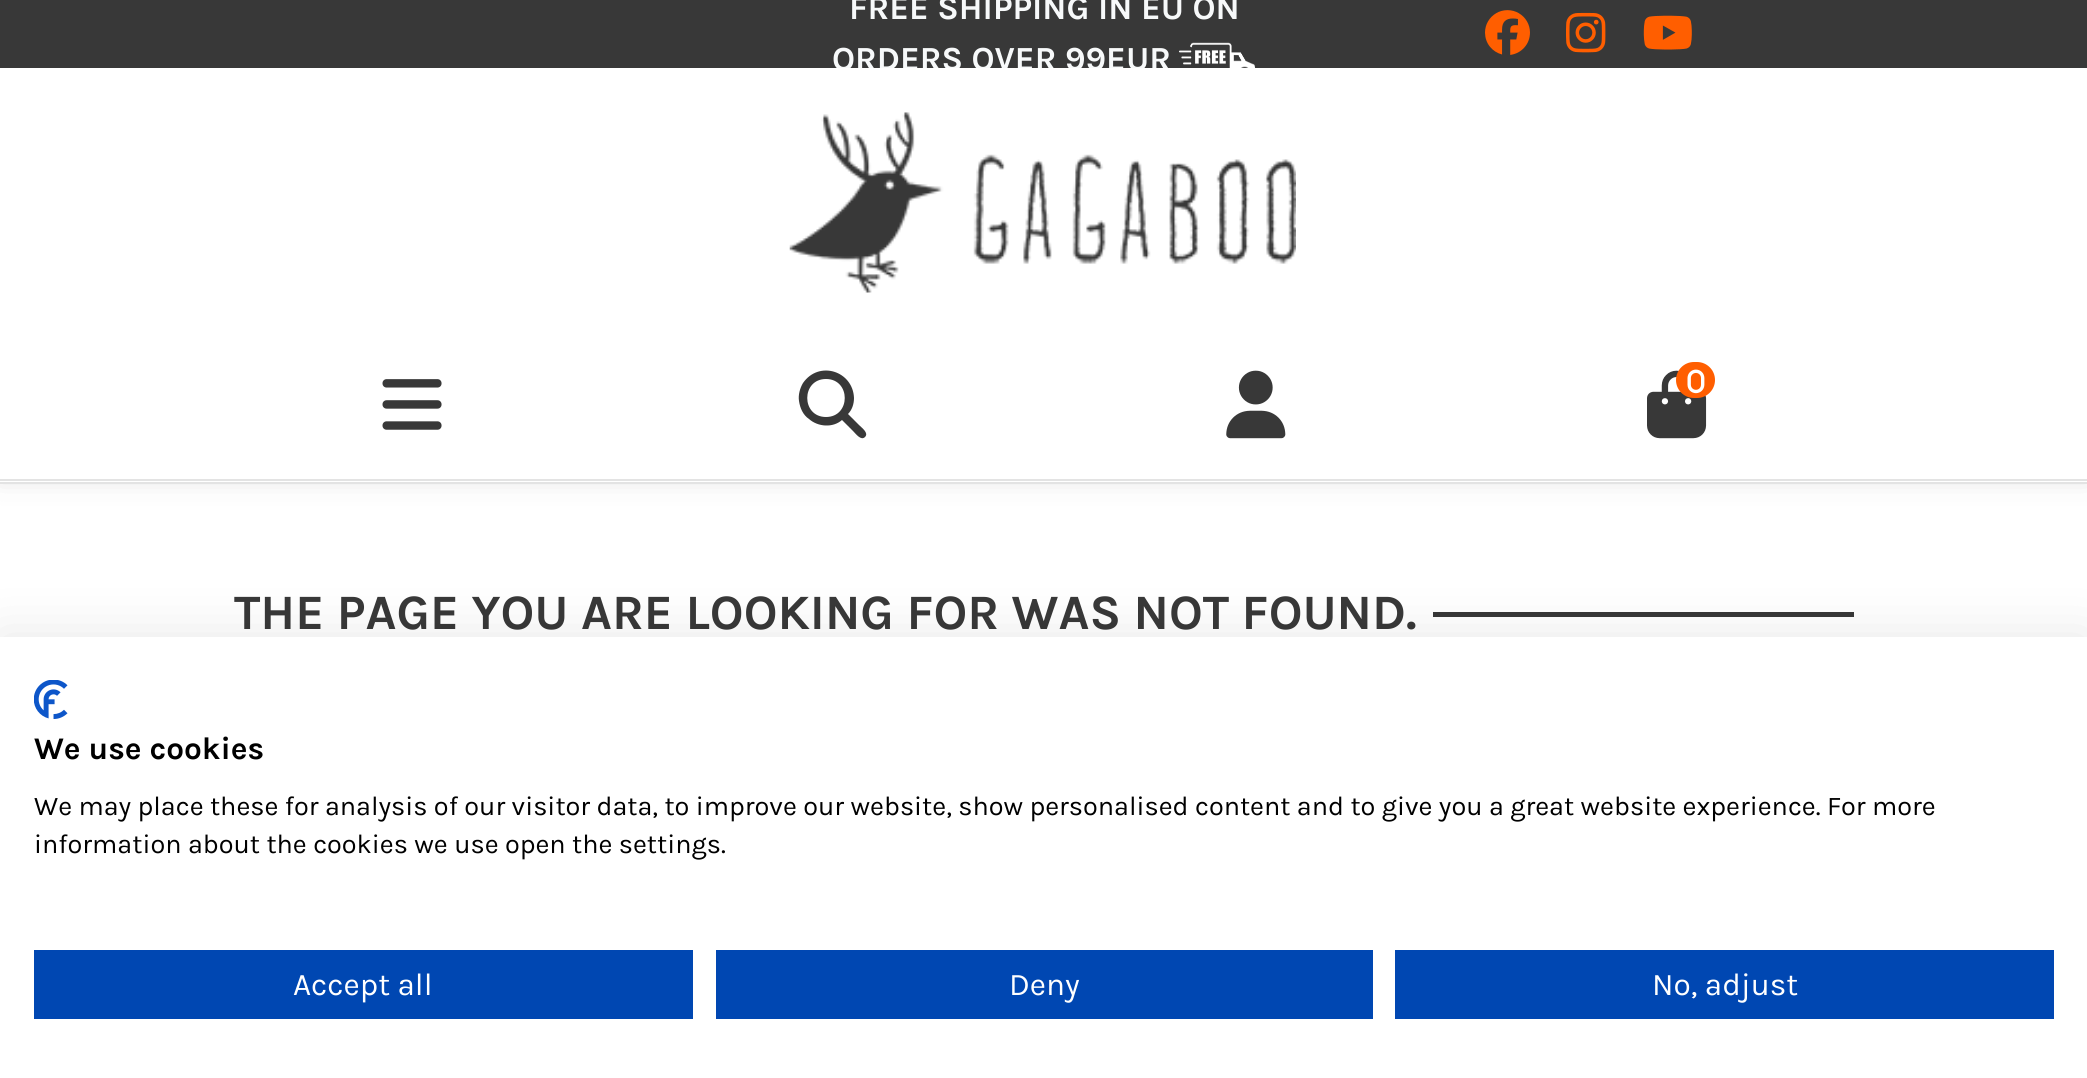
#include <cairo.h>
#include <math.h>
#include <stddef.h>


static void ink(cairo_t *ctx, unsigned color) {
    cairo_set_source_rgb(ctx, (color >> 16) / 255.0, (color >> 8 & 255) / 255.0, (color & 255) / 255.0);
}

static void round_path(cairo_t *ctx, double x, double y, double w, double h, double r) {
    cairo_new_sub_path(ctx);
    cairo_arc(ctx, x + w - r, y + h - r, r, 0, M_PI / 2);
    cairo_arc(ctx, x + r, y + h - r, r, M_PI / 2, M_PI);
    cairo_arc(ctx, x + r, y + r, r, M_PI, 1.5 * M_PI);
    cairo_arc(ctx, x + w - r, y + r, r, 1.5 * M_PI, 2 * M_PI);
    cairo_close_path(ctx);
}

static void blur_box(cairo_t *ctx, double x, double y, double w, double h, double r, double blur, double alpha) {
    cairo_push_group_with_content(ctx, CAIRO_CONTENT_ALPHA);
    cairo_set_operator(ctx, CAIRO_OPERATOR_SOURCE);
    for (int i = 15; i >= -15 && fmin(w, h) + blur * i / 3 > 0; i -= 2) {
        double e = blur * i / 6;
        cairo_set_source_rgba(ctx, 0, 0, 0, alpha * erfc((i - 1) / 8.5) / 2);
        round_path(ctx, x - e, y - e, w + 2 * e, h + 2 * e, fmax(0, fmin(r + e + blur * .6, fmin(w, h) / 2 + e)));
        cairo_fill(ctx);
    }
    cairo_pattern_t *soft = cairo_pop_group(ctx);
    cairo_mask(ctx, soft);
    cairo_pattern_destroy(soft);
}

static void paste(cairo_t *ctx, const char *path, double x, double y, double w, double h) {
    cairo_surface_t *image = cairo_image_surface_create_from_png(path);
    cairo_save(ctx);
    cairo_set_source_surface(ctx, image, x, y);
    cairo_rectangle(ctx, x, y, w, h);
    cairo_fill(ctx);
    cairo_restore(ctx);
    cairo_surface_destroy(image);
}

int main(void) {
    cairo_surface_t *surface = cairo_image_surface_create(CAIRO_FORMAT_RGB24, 2087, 1078);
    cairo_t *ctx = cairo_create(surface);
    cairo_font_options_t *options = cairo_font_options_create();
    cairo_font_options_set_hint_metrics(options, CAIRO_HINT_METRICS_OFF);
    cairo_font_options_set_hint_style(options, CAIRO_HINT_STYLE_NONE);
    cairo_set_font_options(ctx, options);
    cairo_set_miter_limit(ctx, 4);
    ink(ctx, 0xFFFFFF);
    cairo_paint(ctx);
    ink(ctx, 0x3D3939);
    blur_box(ctx, 0, -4, 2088, 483, 0, 12.5, 0.17);
    ink(ctx, 0xE3E3E3);
    cairo_rectangle(ctx, 0, 482, 2087, 2);
    cairo_fill(ctx);
    ink(ctx, 0x383838);
    cairo_rectangle(ctx, 0, 0, 2087, 68);
    cairo_fill(ctx);
    cairo_select_font_face(ctx, "Karla", CAIRO_FONT_SLANT_NORMAL, CAIRO_FONT_WEIGHT_BOLD);
    cairo_set_font_size(ctx, 33.75);
    ink(ctx, 0xF7F9FA);
    cairo_move_to(ctx, 849, 19);
    cairo_show_text(ctx, "FREE SHIPPING IN EU ON");
    cairo_save(ctx);
    cairo_rectangle(ctx, 0, 0, 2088, 68);
    cairo_clip(ctx);
    cairo_move_to(ctx, 832, 70);
    cairo_show_text(ctx, "ORDERS OVER 99EUR");
    cairo_restore(ctx);
    paste(ctx, "media/1.png", 1179, 42, 77, 26);
    paste(ctx, "media/2.png", 1485, 10, 45, 45);
    paste(ctx, "media/3.png", 1566, 12, 40, 41);
    paste(ctx, "media/4.png", 1643, 15, 49, 35);
    ink(ctx, 0xFFFFFF);
    cairo_rectangle(ctx, 0, 68, 2087, 414);
    cairo_fill(ctx);
    ink(ctx, 0xE3E3E3);
    cairo_rectangle(ctx, 0, 479, 2087, 2);
    cairo_fill(ctx);
    paste(ctx, "media/5.png", 789, 112, 507, 181);
    paste(ctx, "media/6.png", 382, 379, 60, 51);
    ink(ctx, 0x383838);
    cairo_new_path(ctx);
    cairo_move_to(ctx, 854, 398);
    cairo_curve_to(ctx, 854, 404, 852, 410, 848, 414);
    cairo_line_to(ctx, 859, 425);
    cairo_curve_to(ctx, 862, 428, 869, 433, 865, 437);
    cairo_curve_to(ctx, 861, 441, 856, 434, 853, 431);
    cairo_line_to(ctx, 842, 420);
    cairo_curve_to(ctx, 833, 428, 818, 427, 809, 419);
    cairo_curve_to(ctx, 803, 415, 800, 408, 799, 401);
    cairo_curve_to(ctx, 798, 395, 800, 388, 803, 383);
    cairo_curve_to(ctx, 819, 360, 853, 371, 854, 398);
    cairo_close_path(ctx);
    cairo_move_to(ctx, 826, 417);
    cairo_curve_to(ctx, 851, 417, 851, 379, 826, 379);
    cairo_curve_to(ctx, 801, 379, 801, 417, 826, 417);
    cairo_close_path(ctx);
    cairo_fill(ctx);
    paste(ctx, "media/7.png", 1226, 370, 60, 69);
    paste(ctx, "media/9.png", 1647, 370, 60, 69);
    ink(ctx, 0xFF5E00);
    round_path(ctx, 1676, 362, 39, 36, 18);
    cairo_fill(ctx);
    paste(ctx, "media/8.png", 1687, 369, 18, 25);
    cairo_set_font_size(ctx, 49.5);
    ink(ctx, 0x383838);
    cairo_move_to(ctx, 234, 629);
    cairo_show_text(ctx, "THE PAGE YOU ARE LOOKING FOR WAS NOT FOUND.");
    cairo_rectangle(ctx, 1433, 612, 421, 5);
    cairo_fill(ctx);
    ink(ctx, 0x000000);
    blur_box(ctx, 0, 637, 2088, 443, 0, 27, 0.1);
    ink(ctx, 0xFFFFFF);
    cairo_rectangle(ctx, 0, 637, 2087, 441);
    cairo_fill(ctx);
    paste(ctx, "media/10.png", 34, 680, 34, 39);
    cairo_set_font_size(ctx, 31.5);
    ink(ctx, 0x000000);
    cairo_move_to(ctx, 34, 759);
    cairo_show_text(ctx, "We use cookies");
    cairo_select_font_face(ctx, "Karla", CAIRO_FONT_SLANT_NORMAL, CAIRO_FONT_WEIGHT_NORMAL);
    cairo_set_font_size(ctx, 27);
    cairo_move_to(ctx, 34, 815);
    cairo_show_text(ctx, "We may place these for analysis of our visitor data, to improve our website, show personalised content and to give you a great website experience. For more");
    cairo_move_to(ctx, 34, 853);
    cairo_show_text(ctx, "information about the cookies we use open the settings.");
    ink(ctx, 0x0047B2);
    cairo_rectangle(ctx, 34, 950, 659, 69);
    cairo_fill(ctx);
    cairo_set_font_size(ctx, 31.5);
    ink(ctx, 0xFFFFFF);
    cairo_move_to(ctx, 293, 995);
    cairo_show_text(ctx, "Accept all");
    ink(ctx, 0x0047B2);
    cairo_rectangle(ctx, 716, 950, 657, 69);
    cairo_fill(ctx);
    ink(ctx, 0xFFFFFF);
    cairo_move_to(ctx, 1009, 995);
    cairo_show_text(ctx, "Deny");
    ink(ctx, 0x0047B2);
    cairo_rectangle(ctx, 1395, 950, 659, 69);
    cairo_fill(ctx);
    ink(ctx, 0xFFFFFF);
    cairo_move_to(ctx, 1652, 995);
    cairo_show_text(ctx, "No, adjust");
    cairo_surface_write_to_png(surface, "image.png");
    cairo_font_options_destroy(options);
    cairo_destroy(ctx);
    cairo_surface_destroy(surface);
    return 0;
}
